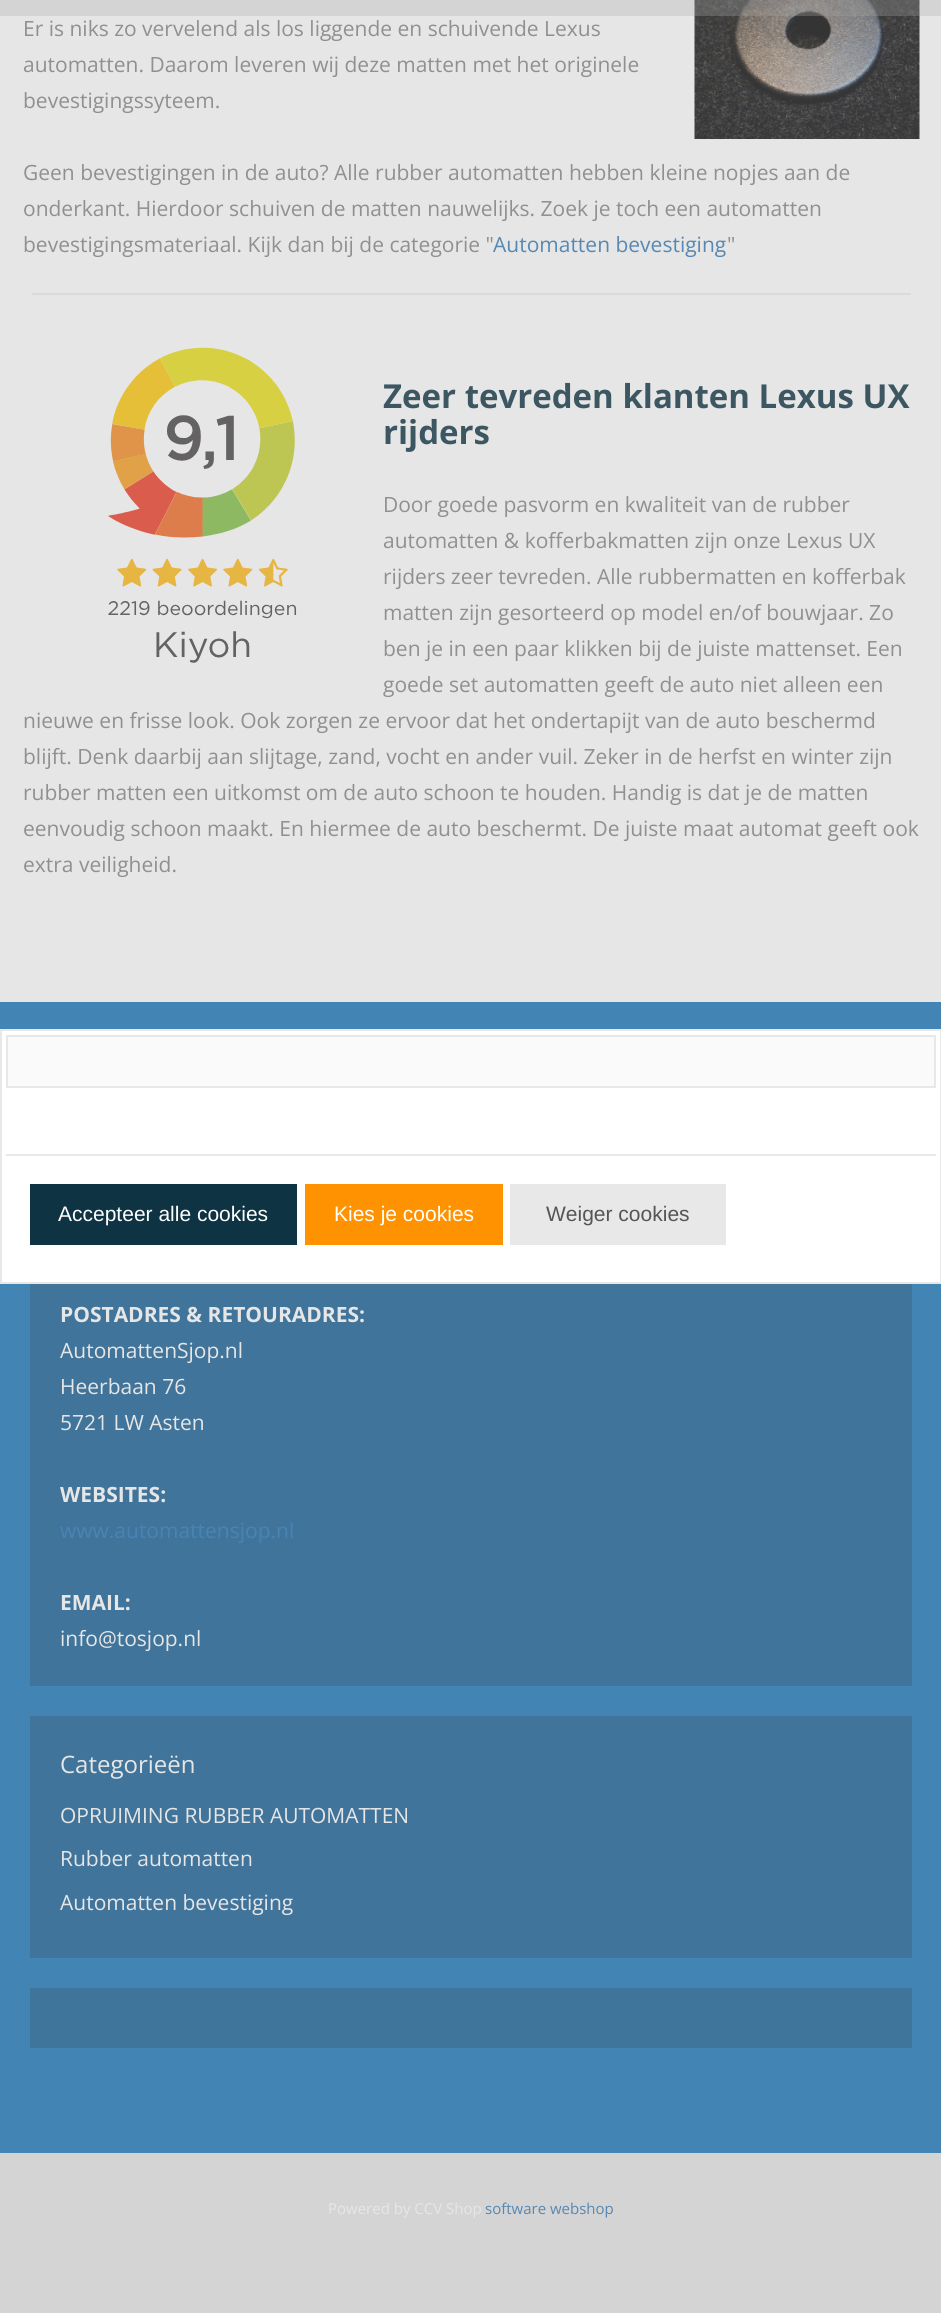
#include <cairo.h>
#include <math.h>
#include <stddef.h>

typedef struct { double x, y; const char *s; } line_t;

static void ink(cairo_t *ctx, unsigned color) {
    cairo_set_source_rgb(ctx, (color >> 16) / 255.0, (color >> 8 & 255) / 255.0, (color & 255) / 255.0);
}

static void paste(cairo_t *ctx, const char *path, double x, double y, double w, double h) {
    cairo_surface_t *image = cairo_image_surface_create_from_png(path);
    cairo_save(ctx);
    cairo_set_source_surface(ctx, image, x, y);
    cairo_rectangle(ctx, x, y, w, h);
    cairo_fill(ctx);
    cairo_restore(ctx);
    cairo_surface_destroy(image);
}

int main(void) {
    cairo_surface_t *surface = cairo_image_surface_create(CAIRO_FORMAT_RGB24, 941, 2313);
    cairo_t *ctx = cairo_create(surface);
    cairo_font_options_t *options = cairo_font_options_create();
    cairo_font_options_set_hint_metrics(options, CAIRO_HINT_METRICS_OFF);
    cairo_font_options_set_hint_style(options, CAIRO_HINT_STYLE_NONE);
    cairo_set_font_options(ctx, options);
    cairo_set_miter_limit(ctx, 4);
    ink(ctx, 0xE6E6E6);
    cairo_paint(ctx);
    paste(ctx, "media/1.png", 694, 0, 226, 139);
    cairo_set_source_rgba(ctx, 0.671, 0.671, 0.671, 0.3);
    cairo_rectangle(ctx, 0, 0, 941, 16);
    cairo_fill(ctx);
    cairo_select_font_face(ctx, "Open Sans", CAIRO_FONT_SLANT_NORMAL, CAIRO_FONT_WEIGHT_NORMAL);
    cairo_set_font_size(ctx, 21);
    ink(ctx, 0x909090);
    {
        static const line_t items[] = {
            {23, 36, "Er is niks zo vervelend als los liggende en schuivende Lexus"},
            {23, 72, "automatten. Daarom leveren wij deze matten met het originele"},
            {23, 108, "bevestigingssyteem."},
            {23, 180, "Geen bevestigingen in de auto? Alle rubber automatten hebben kleine nopjes aan de"},
            {23, 216, "onderkant. Hierdoor schuiven de matten nauwelijks. Zoek je toch een automatten"},
            {23, 252, "bevestigingsmateriaal. Kijk dan bij de categorie \""},
        };
        for (size_t i = 0; i < sizeof items / sizeof *items; i++) {
            cairo_move_to(ctx, items[i].x, items[i].y);
            cairo_show_text(ctx, items[i].s);
        }
    }
    ink(ctx, 0x5788B3);
    cairo_move_to(ctx, 493, 252);
    cairo_show_text(ctx, "Automatten bevestiging");
    ink(ctx, 0x909090);
    cairo_move_to(ctx, 727, 252);
    cairo_show_text(ctx, "\"");
    ink(ctx, 0xDADADA);
    cairo_rectangle(ctx, 32, 293, 879, 2);
    cairo_fill(ctx);
    paste(ctx, "media/2.png", 108, 347, 189, 316);
    cairo_select_font_face(ctx, "Open Sans", CAIRO_FONT_SLANT_NORMAL, CAIRO_FONT_WEIGHT_BOLD);
    cairo_set_font_size(ctx, 33);
    ink(ctx, 0x3D5762);
    cairo_move_to(ctx, 383, 408);
    cairo_show_text(ctx, "Zeer tevreden klanten Lexus UX");
    cairo_move_to(ctx, 383, 444);
    cairo_show_text(ctx, "rijders");
    cairo_select_font_face(ctx, "Open Sans", CAIRO_FONT_SLANT_NORMAL, CAIRO_FONT_WEIGHT_NORMAL);
    cairo_set_font_size(ctx, 21);
    ink(ctx, 0x909090);
    {
        static const line_t items[] = {
            {383, 512, "Door goede pasvorm en kwaliteit van de rubber"},
            {383, 548, "automatten & kofferbakmatten zijn onze Lexus UX"},
            {383, 584, "rijders zeer tevreden. Alle rubbermatten en kofferbak"},
            {383, 620, "matten zijn gesorteerd op model en/of bouwjaar. Zo"},
            {383, 656, "ben je in een paar klikken bij de juiste mattenset. Een"},
            {383, 692, "goede set automatten geeft de auto niet alleen een"},
            {23, 728, "nieuwe en frisse look. Ook zorgen ze ervoor dat het ondertapijt van de auto beschermd"},
            {23, 764, "blijft. Denk daarbij aan slijtage, zand, vocht en ander vuil. Zeker in de herfst en winter zijn"},
            {23, 800, "rubber matten een uitkomst om de auto schoon te houden. Handig is dat je de matten"},
            {23, 836, "eenvoudig schoon maakt. En hiermee de auto beschermt. De juiste maat automat geeft ook"},
            {23, 872, "extra veiligheid."},
        };
        for (size_t i = 0; i < sizeof items / sizeof *items; i++) {
            cairo_move_to(ctx, items[i].x, items[i].y);
            cairo_show_text(ctx, items[i].s);
        }
    }
    ink(ctx, 0x4285B5);
    cairo_rectangle(ctx, 0, 1002, 941, 1151);
    cairo_fill(ctx);
    ink(ctx, 0xFFFFFF);
    cairo_rectangle(ctx, 1, 1030, 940, 253);
    cairo_fill_preserve(ctx);
    ink(ctx, 0xE8E8E8);
    cairo_stroke(ctx);
    ink(ctx, 0xFAFAFA);
    cairo_rectangle(ctx, 7, 1036, 928, 51);
    cairo_fill_preserve(ctx);
    ink(ctx, 0xE8E8E8);
    cairo_stroke(ctx);
    cairo_rectangle(ctx, 6, 1154, 930, 2);
    cairo_fill(ctx);
    ink(ctx, 0x0E3343);
    cairo_rectangle(ctx, 30, 1184, 267, 61);
    cairo_fill(ctx);
    cairo_select_font_face(ctx, "Liberation Sans", CAIRO_FONT_SLANT_NORMAL, CAIRO_FONT_WEIGHT_NORMAL);
    ink(ctx, 0xFFFFFF);
    cairo_move_to(ctx, 58, 1221);
    cairo_show_text(ctx, "Accepteer alle cookies");
    ink(ctx, 0xFF9200);
    cairo_rectangle(ctx, 305, 1184, 198, 61);
    cairo_fill(ctx);
    ink(ctx, 0xFFFFFF);
    cairo_move_to(ctx, 334, 1221);
    cairo_show_text(ctx, "Kies je cookies");
    ink(ctx, 0xE8E8E8);
    cairo_rectangle(ctx, 510, 1184, 216, 61);
    cairo_fill(ctx);
    ink(ctx, 0x555555);
    cairo_move_to(ctx, 546, 1221);
    cairo_show_text(ctx, "Weiger cookies");
    ink(ctx, 0x40749A);
    cairo_rectangle(ctx, 30, 1284, 882, 402);
    cairo_fill(ctx);
    cairo_select_font_face(ctx, "Open Sans", CAIRO_FONT_SLANT_NORMAL, CAIRO_FONT_WEIGHT_BOLD);
    ink(ctx, 0xE6E6E6);
    cairo_move_to(ctx, 60, 1322);
    cairo_show_text(ctx, "POSTADRES & RETOURADRES:");
    cairo_select_font_face(ctx, "Open Sans", CAIRO_FONT_SLANT_NORMAL, CAIRO_FONT_WEIGHT_NORMAL);
    {
        static const line_t items[] = {
            {60, 1358, "AutomattenSjop.nl"},
            {60, 1394, "Heerbaan 76"},
            {60, 1430, "5721 LW Asten"},
        };
        for (size_t i = 0; i < sizeof items / sizeof *items; i++) {
            cairo_move_to(ctx, items[i].x, items[i].y);
            cairo_show_text(ctx, items[i].s);
        }
    }
    cairo_select_font_face(ctx, "Open Sans", CAIRO_FONT_SLANT_NORMAL, CAIRO_FONT_WEIGHT_BOLD);
    cairo_move_to(ctx, 60, 1502);
    cairo_show_text(ctx, "WEBSITES:");
    cairo_select_font_face(ctx, "Open Sans", CAIRO_FONT_SLANT_NORMAL, CAIRO_FONT_WEIGHT_NORMAL);
    ink(ctx, 0x4784B5);
    cairo_move_to(ctx, 60, 1538);
    cairo_show_text(ctx, "www.automattensjop.nl");
    cairo_select_font_face(ctx, "Open Sans", CAIRO_FONT_SLANT_NORMAL, CAIRO_FONT_WEIGHT_BOLD);
    ink(ctx, 0xE6E6E6);
    cairo_move_to(ctx, 60, 1610);
    cairo_show_text(ctx, "EMAIL:");
    cairo_select_font_face(ctx, "Open Sans", CAIRO_FONT_SLANT_NORMAL, CAIRO_FONT_WEIGHT_NORMAL);
    cairo_move_to(ctx, 60, 1646);
    cairo_show_text(ctx, "info@tosjop.nl");
    ink(ctx, 0x40749B);
    cairo_rectangle(ctx, 30, 1716, 882, 242);
    cairo_fill(ctx);
    cairo_set_font_size(ctx, 24);
    ink(ctx, 0xE6E6E6);
    cairo_move_to(ctx, 60, 1773);
    cairo_show_text(ctx, "Categorieën");
    cairo_set_font_size(ctx, 21);
    {
        static const line_t items[] = {
            {60, 1823, "OPRUIMING RUBBER AUTOMATTEN"},
            {60, 1866, "Rubber automatten"},
            {60, 1910, "Automatten bevestiging"},
        };
        for (size_t i = 0; i < sizeof items / sizeof *items; i++) {
            cairo_move_to(ctx, items[i].x, items[i].y);
            cairo_show_text(ctx, items[i].s);
        }
    }
    ink(ctx, 0x40759B);
    cairo_rectangle(ctx, 30, 1988, 882, 60);
    cairo_fill(ctx);
    ink(ctx, 0xD4D4D4);
    cairo_rectangle(ctx, 0, 2153, 941, 160);
    cairo_fill(ctx);
    cairo_set_font_size(ctx, 15);
    ink(ctx, 0xE6E6E6);
    cairo_move_to(ctx, 328, 2214);
    cairo_show_text(ctx, "Powered by CCV Shop");
    ink(ctx, 0x5788B3);
    cairo_move_to(ctx, 485, 2214);
    cairo_show_text(ctx, "software webshop");
    cairo_surface_write_to_png(surface, "image.png");
    cairo_font_options_destroy(options);
    cairo_destroy(ctx);
    cairo_surface_destroy(surface);
    return 0;
}
